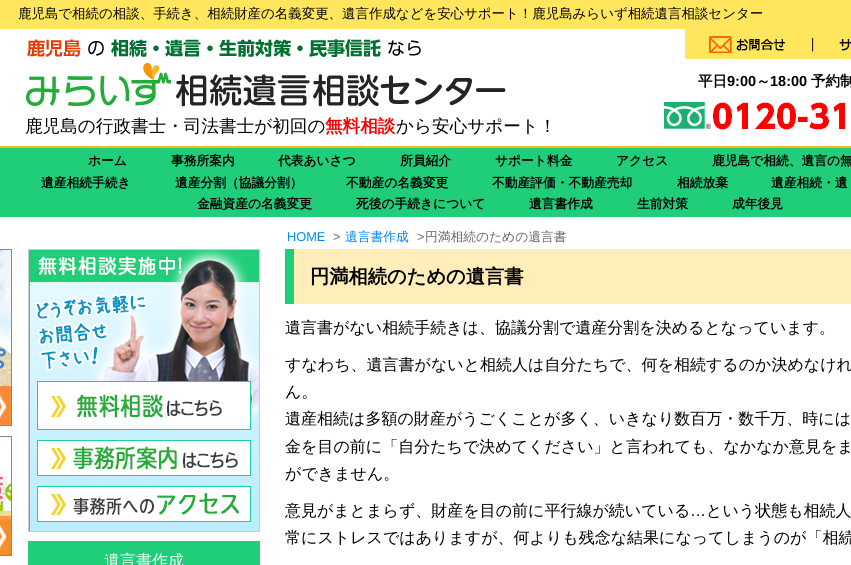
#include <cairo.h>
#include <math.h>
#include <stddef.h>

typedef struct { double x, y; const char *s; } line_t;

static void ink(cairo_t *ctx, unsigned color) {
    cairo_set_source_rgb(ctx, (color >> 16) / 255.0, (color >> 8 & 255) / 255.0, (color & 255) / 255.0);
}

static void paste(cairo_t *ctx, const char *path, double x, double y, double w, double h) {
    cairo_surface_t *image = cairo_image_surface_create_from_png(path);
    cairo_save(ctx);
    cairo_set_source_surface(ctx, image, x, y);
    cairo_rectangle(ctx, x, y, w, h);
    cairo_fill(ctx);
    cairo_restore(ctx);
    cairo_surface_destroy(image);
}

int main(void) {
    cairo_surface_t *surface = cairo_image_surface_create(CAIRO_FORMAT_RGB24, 851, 565);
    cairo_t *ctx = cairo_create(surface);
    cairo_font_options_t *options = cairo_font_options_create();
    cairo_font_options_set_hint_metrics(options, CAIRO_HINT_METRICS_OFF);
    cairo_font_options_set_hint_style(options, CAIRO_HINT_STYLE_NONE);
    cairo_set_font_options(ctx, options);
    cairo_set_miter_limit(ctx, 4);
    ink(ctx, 0xFFFFFF);
    cairo_paint(ctx);
    ink(ctx, 0xFFE65C);
    cairo_rectangle(ctx, 0, 0, 851, 29);
    cairo_fill(ctx);
    cairo_select_font_face(ctx, "WenQuanYi Zen Hei Medium", CAIRO_FONT_SLANT_NORMAL, CAIRO_FONT_WEIGHT_NORMAL);
    cairo_set_font_size(ctx, 13.45);
    ink(ctx, 0x000000);
    cairo_move_to(ctx, 18, 18);
    cairo_show_text(ctx, "鹿児島で相続の相談、手続き、相続財産の名義変更、遺言作成などを安心サポート！鹿児島みらいず相続遺言相談センター");
    paste(ctx, "media/1.png", 685, 29, 128, 30);
    paste(ctx, "media/2.png", 813, 29, 38, 30);
    cairo_select_font_face(ctx, "WenQuanYi Zen Hei", CAIRO_FONT_SLANT_NORMAL, CAIRO_FONT_WEIGHT_BOLD);
    cairo_set_font_size(ctx, 14.5);
    cairo_move_to(ctx, 698, 86);
    cairo_show_text(ctx, "平日");
    cairo_select_font_face(ctx, "Liberation Sans", CAIRO_FONT_SLANT_NORMAL, CAIRO_FONT_WEIGHT_BOLD);
    cairo_move_to(ctx, 727, 86);
    cairo_show_text(ctx, "9:00");
    cairo_select_font_face(ctx, "WenQuanYi Zen Hei", CAIRO_FONT_SLANT_NORMAL, CAIRO_FONT_WEIGHT_BOLD);
    cairo_move_to(ctx, 756, 86);
    cairo_show_text(ctx, "～");
    cairo_select_font_face(ctx, "Liberation Sans", CAIRO_FONT_SLANT_NORMAL, CAIRO_FONT_WEIGHT_BOLD);
    cairo_move_to(ctx, 770, 86);
    cairo_show_text(ctx, "18:00");
    cairo_select_font_face(ctx, "WenQuanYi Zen Hei", CAIRO_FONT_SLANT_NORMAL, CAIRO_FONT_WEIGHT_BOLD);
    cairo_move_to(ctx, 811, 86);
    cairo_show_text(ctx, "予約制");
    paste(ctx, "media/3.png", 664, 102, 181, 28);
    paste(ctx, "media/4.png", 26, 39, 480, 68);
    cairo_select_font_face(ctx, "WenQuanYi Zen Hei Medium", CAIRO_FONT_SLANT_NORMAL, CAIRO_FONT_WEIGHT_NORMAL);
    cairo_set_font_size(ctx, 17.6);
    cairo_move_to(ctx, 25, 132);
    cairo_show_text(ctx, "鹿児島の行政書士・司法書士が初回の");
    cairo_select_font_face(ctx, "WenQuanYi Zen Hei", CAIRO_FONT_SLANT_NORMAL, CAIRO_FONT_WEIGHT_BOLD);
    ink(ctx, 0xFF0000);
    cairo_move_to(ctx, 325, 132);
    cairo_show_text(ctx, "無料相談");
    cairo_select_font_face(ctx, "WenQuanYi Zen Hei Medium", CAIRO_FONT_SLANT_NORMAL, CAIRO_FONT_WEIGHT_NORMAL);
    ink(ctx, 0x000000);
    cairo_move_to(ctx, 396, 132);
    cairo_show_text(ctx, "から安心サポート！");
    ink(ctx, 0x20CE7A);
    cairo_rectangle(ctx, 0, 148, 851, 69);
    cairo_fill(ctx);
    ink(ctx, 0xF8B62B);
    cairo_rectangle(ctx, 0, 146, 851, 2);
    cairo_fill(ctx);
    cairo_select_font_face(ctx, "WenQuanYi Zen Hei", CAIRO_FONT_SLANT_NORMAL, CAIRO_FONT_WEIGHT_BOLD);
    cairo_set_font_size(ctx, 12.75);
    ink(ctx, 0x000000);
    {
        static const line_t items[] = {
            {88, 165, "ホーム"},
            {171, 165, "事務所案内"},
            {278, 165, "代表あいさつ"},
            {400, 165, "所員紹介"},
            {495, 165, "サポート料金"},
            {616, 165, "アクセス"},
            {712, 165, "鹿児島で相続、遺言の無"},
            {41, 187, "遺産相続手続き"},
            {175, 187, "遺産分割（協議分割）"},
            {346, 187, "不動産の名義変更"},
            {492, 187, "不動産評価・不動産売却"},
            {677, 187, "相続放棄"},
            {771, 187, "遺産相続・遺"},
            {197, 208, "金融資産の名義変更"},
            {356, 208, "死後の手続きについて"},
            {529, 208, "遺言書作成"},
            {637, 208, "生前対策"},
            {732, 208, "成年後見"},
        };
        for (size_t i = 0; i < sizeof items / sizeof *items; i++) {
            cairo_move_to(ctx, items[i].x, items[i].y);
            cairo_show_text(ctx, items[i].s);
        }
    }
    paste(ctx, "media/5.png", 0, 249, 12, 177);
    paste(ctx, "media/6.png", 0, 436, 12, 120);
    cairo_select_font_face(ctx, "Liberation Sans", CAIRO_FONT_SLANT_NORMAL, CAIRO_FONT_WEIGHT_NORMAL);
    ink(ctx, 0x0088F1);
    cairo_move_to(ctx, 287, 241);
    cairo_show_text(ctx, "HOME");
    ink(ctx, 0x666666);
    cairo_move_to(ctx, 333, 241);
    cairo_show_text(ctx, ">");
    cairo_select_font_face(ctx, "WenQuanYi Zen Hei Medium", CAIRO_FONT_SLANT_NORMAL, CAIRO_FONT_WEIGHT_NORMAL);
    ink(ctx, 0x0088F1);
    cairo_move_to(ctx, 345, 241);
    cairo_show_text(ctx, "遺言書作成");
    cairo_select_font_face(ctx, "Liberation Sans", CAIRO_FONT_SLANT_NORMAL, CAIRO_FONT_WEIGHT_NORMAL);
    ink(ctx, 0x666666);
    cairo_move_to(ctx, 417, 241);
    cairo_show_text(ctx, ">");
    cairo_select_font_face(ctx, "WenQuanYi Zen Hei Medium", CAIRO_FONT_SLANT_NORMAL, CAIRO_FONT_WEIGHT_NORMAL);
    cairo_move_to(ctx, 425, 241);
    cairo_show_text(ctx, "円満相続のための遺言書");
    paste(ctx, "media/7.png", 285, 249, 566, 55);
    cairo_select_font_face(ctx, "WenQuanYi Zen Hei", CAIRO_FONT_SLANT_NORMAL, CAIRO_FONT_WEIGHT_BOLD);
    cairo_set_font_size(ctx, 19.25);
    ink(ctx, 0x000000);
    cairo_move_to(ctx, 310, 283);
    cairo_show_text(ctx, "円満相続のための遺言書");
    cairo_select_font_face(ctx, "WenQuanYi Zen Hei Medium", CAIRO_FONT_SLANT_NORMAL, CAIRO_FONT_WEIGHT_NORMAL);
    cairo_set_font_size(ctx, 16);
    {
        static const line_t items[] = {
            {285, 333, "遺言書がない相続手続きは、協議分割で遺産分割を決めるとなっています。"},
            {285, 370, "すなわち、遺言書がないと相続人は自分たちで、何を相続するのか決めなけれ"},
            {285, 397, "ん。"},
            {285, 424, "遺産相続は多額の財産がうごくことが多く、いきなり数百万・数千万、時には"},
            {285, 452, "金を目の前に「自分たちで決めてください」と言われても、なかなか意見をま"},
            {285, 479, "ができません。"},
            {285, 516, "意見がまとまらず、財産を目の前に平行線が続いている"},
        };
        for (size_t i = 0; i < sizeof items / sizeof *items; i++) {
            cairo_move_to(ctx, items[i].x, items[i].y);
            cairo_show_text(ctx, items[i].s);
        }
    }
    cairo_select_font_face(ctx, "Liberation Sans", CAIRO_FONT_SLANT_NORMAL, CAIRO_FONT_WEIGHT_NORMAL);
    cairo_move_to(ctx, 690, 516);
    cairo_show_text(ctx, "…");
    cairo_select_font_face(ctx, "WenQuanYi Zen Hei Medium", CAIRO_FONT_SLANT_NORMAL, CAIRO_FONT_WEIGHT_NORMAL);
    cairo_move_to(ctx, 706, 516);
    cairo_show_text(ctx, "という状態も相続人");
    cairo_move_to(ctx, 285, 543);
    cairo_show_text(ctx, "常にストレスではありますが、何よりも残念な結果になってしまうのが「相続");
    paste(ctx, "media/8.png", 29, 250, 230, 281);
    cairo_rectangle(ctx, 28.5, 249.5, 231, 282);
    ink(ctx, 0xCCCCCC);
    cairo_set_line_width(ctx, 1);
    cairo_stroke(ctx);
    paste(ctx, "media/9.png", 37, 381, 214, 49);
    paste(ctx, "media/10.png", 37, 440, 214, 36);
    paste(ctx, "media/11.png", 37, 486, 214, 36);
    ink(ctx, 0x20CE7A);
    cairo_rectangle(ctx, 28, 541, 232, 24);
    cairo_fill(ctx);
    ink(ctx, 0xFFFFFF);
    cairo_move_to(ctx, 104, 566);
    cairo_show_text(ctx, "遺言書作成");
    cairo_surface_write_to_png(surface, "image.png");
    cairo_font_options_destroy(options);
    cairo_destroy(ctx);
    cairo_surface_destroy(surface);
    return 0;
}
